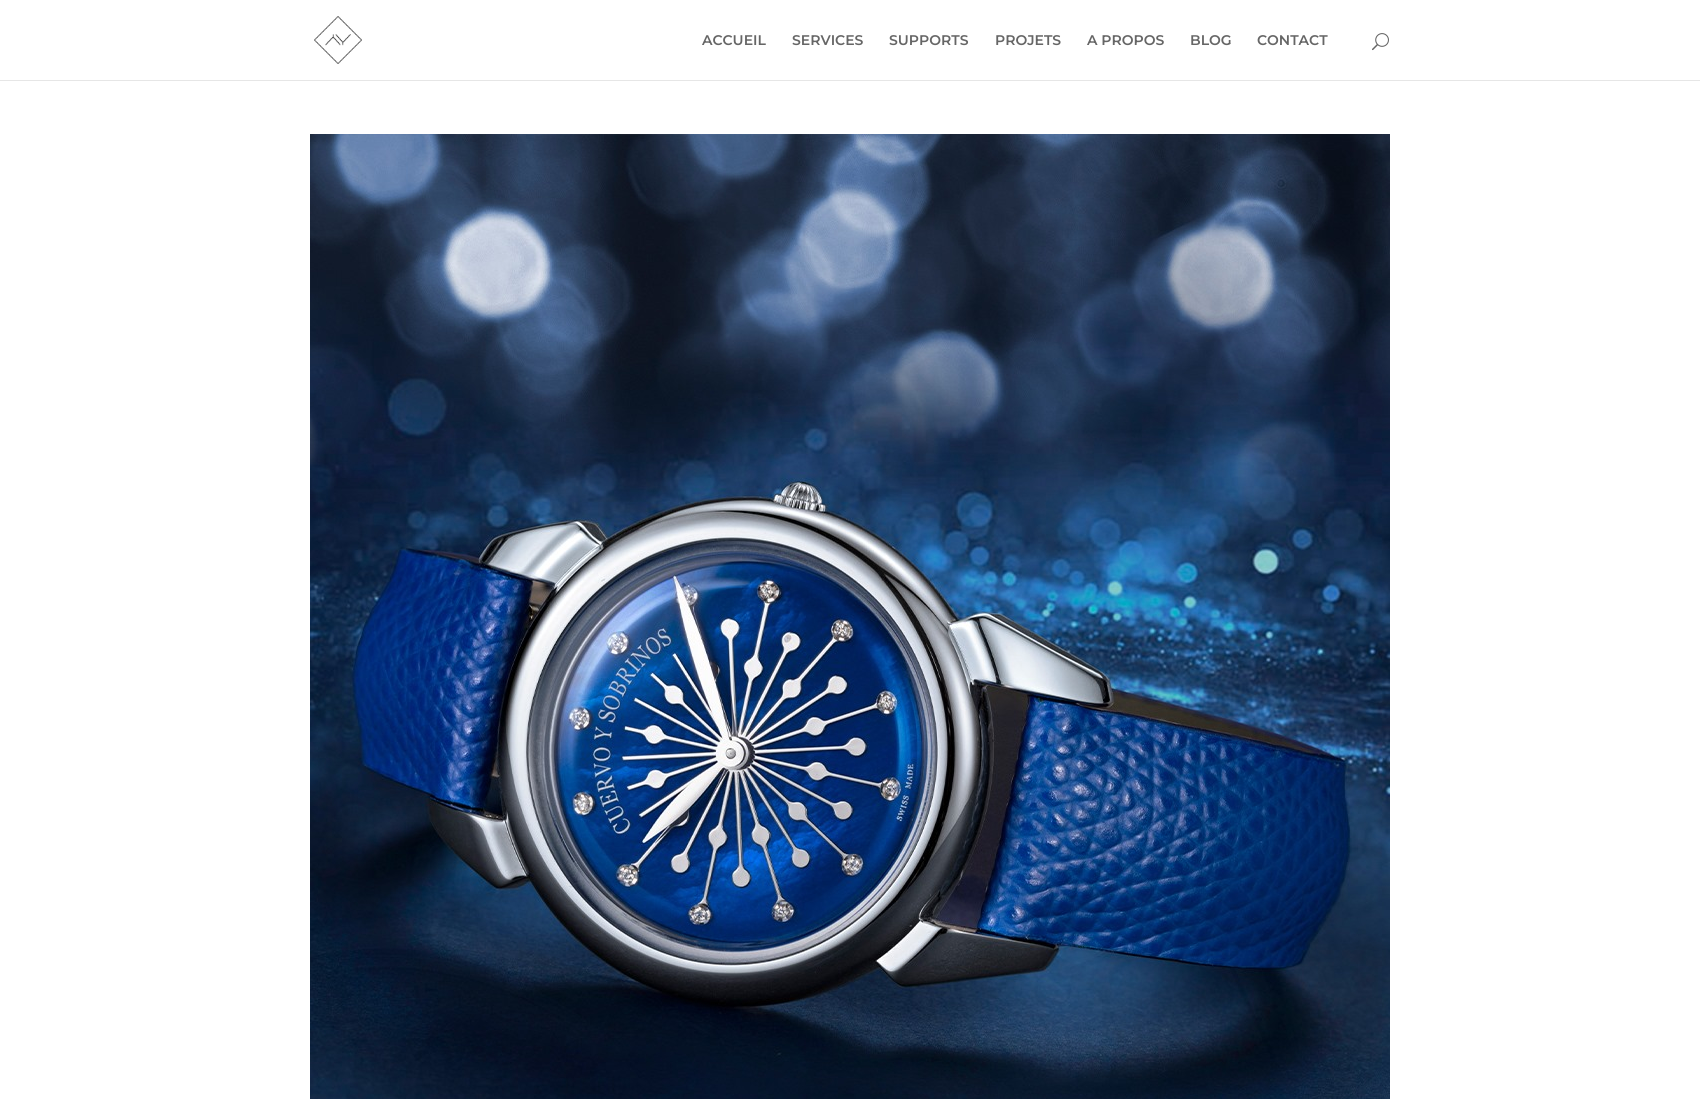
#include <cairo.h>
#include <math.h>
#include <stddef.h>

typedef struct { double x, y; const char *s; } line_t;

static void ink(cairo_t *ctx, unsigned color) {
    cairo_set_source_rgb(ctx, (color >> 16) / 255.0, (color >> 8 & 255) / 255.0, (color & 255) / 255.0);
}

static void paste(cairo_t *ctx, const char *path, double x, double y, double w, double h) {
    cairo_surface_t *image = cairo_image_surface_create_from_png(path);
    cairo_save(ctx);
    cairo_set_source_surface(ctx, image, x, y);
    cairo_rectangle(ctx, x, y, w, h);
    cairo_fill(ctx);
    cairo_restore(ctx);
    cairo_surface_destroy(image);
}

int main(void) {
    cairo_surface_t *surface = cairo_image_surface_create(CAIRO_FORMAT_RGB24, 1700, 1099);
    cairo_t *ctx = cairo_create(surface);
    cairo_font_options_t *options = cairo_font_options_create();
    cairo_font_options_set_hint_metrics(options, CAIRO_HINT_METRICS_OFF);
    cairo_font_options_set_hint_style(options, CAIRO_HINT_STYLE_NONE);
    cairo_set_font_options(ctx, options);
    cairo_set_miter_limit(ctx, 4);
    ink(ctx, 0xFFFFFF);
    cairo_paint(ctx);
    ink(ctx, 0xE6E6E6);
    cairo_rectangle(ctx, 0, 80, 1700, 1);
    cairo_fill(ctx);
    paste(ctx, "media/1.png", 314, 16, 48, 48);
    cairo_select_font_face(ctx, "Montserrat Thin", CAIRO_FONT_SLANT_NORMAL, CAIRO_FONT_WEIGHT_NORMAL);
    cairo_set_font_size(ctx, 14);
    ink(ctx, 0x666666);
    {
        static const line_t items[] = {
            {702, 45, "ACCUEIL"},
            {792, 45, "SERVICES"},
            {889, 45, "SUPPORTS"},
            {995, 45, "PROJETS"},
            {1087, 45, "A PROPOS"},
            {1190, 45, "BLOG"},
            {1257, 45, "CONTACT"},
        };
        for (size_t i = 0; i < sizeof items / sizeof *items; i++) {
            cairo_move_to(ctx, items[i].x, items[i].y);
            cairo_show_text(ctx, items[i].s);
        }
    }
    paste(ctx, "media/2.png", 1372, 33, 17, 18);
    paste(ctx, "media/3.png", 310, 134, 1080, 965);
    cairo_surface_write_to_png(surface, "image.png");
    cairo_font_options_destroy(options);
    cairo_destroy(ctx);
    cairo_surface_destroy(surface);
    return 0;
}
